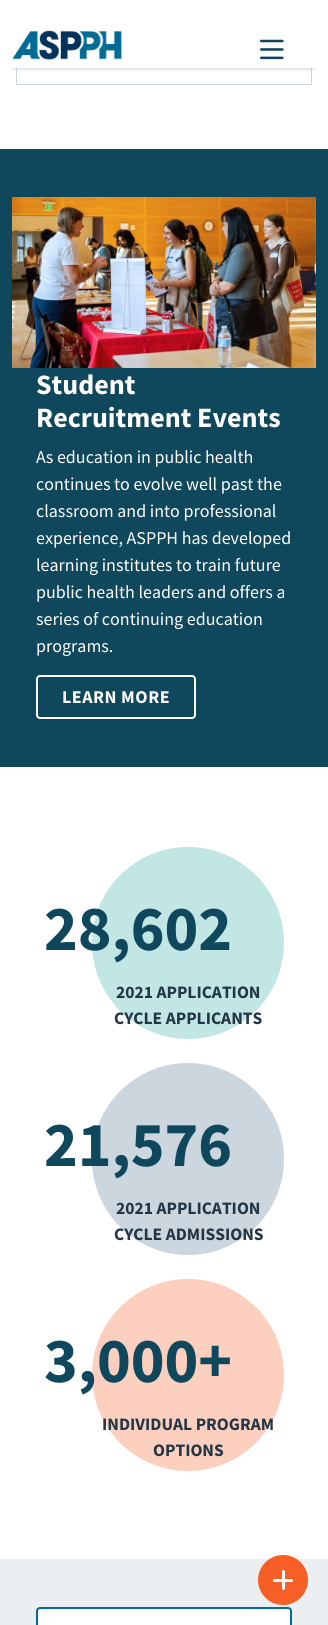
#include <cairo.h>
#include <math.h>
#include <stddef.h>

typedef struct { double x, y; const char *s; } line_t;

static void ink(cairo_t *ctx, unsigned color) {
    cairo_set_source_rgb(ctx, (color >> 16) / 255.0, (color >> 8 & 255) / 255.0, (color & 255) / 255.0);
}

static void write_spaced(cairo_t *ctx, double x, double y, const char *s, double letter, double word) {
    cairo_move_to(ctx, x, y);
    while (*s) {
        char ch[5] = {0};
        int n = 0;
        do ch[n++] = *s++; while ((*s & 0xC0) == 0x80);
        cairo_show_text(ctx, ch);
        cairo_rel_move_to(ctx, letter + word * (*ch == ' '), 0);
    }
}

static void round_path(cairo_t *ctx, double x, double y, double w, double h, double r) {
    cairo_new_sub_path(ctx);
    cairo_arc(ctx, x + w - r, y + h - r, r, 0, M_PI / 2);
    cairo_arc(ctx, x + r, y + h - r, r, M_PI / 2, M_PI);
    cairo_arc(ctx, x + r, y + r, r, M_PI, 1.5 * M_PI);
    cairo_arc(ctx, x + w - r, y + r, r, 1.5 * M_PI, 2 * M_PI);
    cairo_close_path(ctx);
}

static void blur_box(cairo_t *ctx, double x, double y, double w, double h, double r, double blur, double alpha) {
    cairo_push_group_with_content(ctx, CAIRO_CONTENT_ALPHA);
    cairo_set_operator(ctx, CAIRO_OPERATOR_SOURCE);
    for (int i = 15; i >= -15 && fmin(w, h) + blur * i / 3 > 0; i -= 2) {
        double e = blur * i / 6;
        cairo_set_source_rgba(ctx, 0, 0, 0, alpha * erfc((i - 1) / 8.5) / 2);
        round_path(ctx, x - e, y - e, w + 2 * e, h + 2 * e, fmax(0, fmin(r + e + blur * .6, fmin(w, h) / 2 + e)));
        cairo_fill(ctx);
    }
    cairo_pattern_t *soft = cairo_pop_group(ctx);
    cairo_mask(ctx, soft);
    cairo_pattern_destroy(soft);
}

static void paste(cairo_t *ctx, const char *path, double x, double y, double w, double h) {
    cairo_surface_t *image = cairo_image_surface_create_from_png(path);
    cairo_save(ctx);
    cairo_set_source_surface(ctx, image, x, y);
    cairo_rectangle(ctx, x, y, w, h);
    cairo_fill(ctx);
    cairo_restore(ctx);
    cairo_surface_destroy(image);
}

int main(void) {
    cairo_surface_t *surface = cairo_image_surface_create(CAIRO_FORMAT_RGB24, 328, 1625);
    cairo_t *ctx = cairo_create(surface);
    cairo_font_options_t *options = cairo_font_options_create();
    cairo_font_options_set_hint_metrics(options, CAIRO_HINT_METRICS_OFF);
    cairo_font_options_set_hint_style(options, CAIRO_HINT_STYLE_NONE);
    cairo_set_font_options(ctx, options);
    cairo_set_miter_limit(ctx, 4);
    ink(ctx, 0xFFFFFF);
    cairo_paint(ctx);
    cairo_rectangle(ctx, 16.5, -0.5, 295, 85);
    ink(ctx, 0xCCD6DE);
    cairo_set_line_width(ctx, 1);
    cairo_stroke(ctx);
    ink(ctx, 0xFFFFFF);
    cairo_rectangle(ctx, 16, 0, 296, 68);
    cairo_fill(ctx);
    cairo_save(ctx);
    cairo_rectangle(ctx, 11, 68, 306, 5);
    cairo_clip(ctx);
    ink(ctx, 0xBCC6CE);
    blur_box(ctx, 15, 30, 298, 38, 0, 2.5, 1);
    cairo_restore(ctx);
    paste(ctx, "media/1.png", 12, 30, 110, 30);
    paste(ctx, "media/2.png", 260, 39, 24, 21);
    ink(ctx, 0x0F475C);
    cairo_rectangle(ctx, 0, 149, 328, 618);
    cairo_fill(ctx);
    paste(ctx, "media/3.png", 12, 197, 304, 171);
    cairo_select_font_face(ctx, "Source Sans Pro", CAIRO_FONT_SLANT_NORMAL, CAIRO_FONT_WEIGHT_BOLD);
    cairo_set_font_size(ctx, 28);
    ink(ctx, 0xFFFFFF);
    cairo_move_to(ctx, 36, 394);
    cairo_show_text(ctx, "Student");
    cairo_move_to(ctx, 36, 427);
    cairo_show_text(ctx, "Recruitment Events");
    cairo_select_font_face(ctx, "Source Sans Pro", CAIRO_FONT_SLANT_NORMAL, CAIRO_FONT_WEIGHT_NORMAL);
    cairo_set_font_size(ctx, 18);
    {
        static const line_t items[] = {
            {36, 463, "As education in public health"},
            {36, 490, "continues to evolve well past the"},
            {36, 517, "classroom and into professional"},
            {36, 544, "experience, ASPPH has developed"},
            {36, 571, "learning institutes to train future"},
            {36, 598, "public health leaders and offers a"},
            {36, 625, "series of continuing education"},
            {36, 652, "programs."},
        };
        for (size_t i = 0; i < sizeof items / sizeof *items; i++) {
            cairo_move_to(ctx, items[i].x, items[i].y);
            cairo_show_text(ctx, items[i].s);
        }
    }
    round_path(ctx, 37, 676, 158, 42, 3);
    cairo_set_line_width(ctx, 2);
    cairo_stroke(ctx);
    cairo_select_font_face(ctx, "Source Sans Pro", CAIRO_FONT_SLANT_NORMAL, CAIRO_FONT_WEIGHT_BOLD);
    write_spaced(ctx, 62, 703, "LEARN MORE", 0.5, 0);
    ink(ctx, 0xC1E6E4);
    cairo_new_path(ctx);
    cairo_arc(ctx, 188, 943, 96, 0, 2 * M_PI);
    cairo_fill(ctx);
    cairo_set_font_size(ctx, 64);
    ink(ctx, 0x0F475C);
    cairo_move_to(ctx, 44, 950);
    cairo_show_text(ctx, "28,602");
    cairo_set_font_size(ctx, 17.5);
    ink(ctx, 0x223646);
    cairo_move_to(ctx, 116, 998);
    cairo_show_text(ctx, "2021 APPLICATION");
    cairo_move_to(ctx, 114, 1024);
    cairo_show_text(ctx, "CYCLE APPLICANTS");
    ink(ctx, 0xCCD6DE);
    cairo_new_path(ctx);
    cairo_arc(ctx, 188, 1159, 96, 0, 2 * M_PI);
    cairo_fill(ctx);
    cairo_set_font_size(ctx, 64);
    ink(ctx, 0x0F475C);
    cairo_move_to(ctx, 44, 1166);
    cairo_show_text(ctx, "21,576");
    cairo_set_font_size(ctx, 17.5);
    ink(ctx, 0x223646);
    cairo_move_to(ctx, 116, 1214);
    cairo_show_text(ctx, "2021 APPLICATION");
    cairo_move_to(ctx, 114, 1240);
    cairo_show_text(ctx, "CYCLE ADMISSIONS");
    ink(ctx, 0xFDCFBE);
    cairo_new_path(ctx);
    cairo_arc(ctx, 188, 1375, 96, 0, 2 * M_PI);
    cairo_fill(ctx);
    cairo_set_font_size(ctx, 64);
    ink(ctx, 0x0F475C);
    cairo_move_to(ctx, 44, 1382);
    cairo_show_text(ctx, "3,000+");
    cairo_set_font_size(ctx, 17.5);
    ink(ctx, 0x223646);
    cairo_move_to(ctx, 102, 1430);
    cairo_show_text(ctx, "INDIVIDUAL PROGRAM");
    cairo_move_to(ctx, 153, 1456);
    cairo_show_text(ctx, "OPTIONS");
    ink(ctx, 0xEBEFF2);
    cairo_rectangle(ctx, 0, 1559, 328, 66);
    cairo_fill(ctx);
    ink(ctx, 0xFFFFFF);
    round_path(ctx, 37, 1608, 254, 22, 3);
    cairo_fill_preserve(ctx);
    ink(ctx, 0x006B94);
    cairo_stroke(ctx);
    ink(ctx, 0xF85F26);
    cairo_arc(ctx, 283, 1580, 25, 0, 2 * M_PI);
    cairo_fill(ctx);
    ink(ctx, 0xFFFFFF);
    round_path(ctx, 282, 1570, 3, 20, 1.5);
    cairo_fill(ctx);
    round_path(ctx, 273, 1579, 20, 3, 1.5);
    cairo_fill(ctx);
    cairo_surface_write_to_png(surface, "image.png");
    cairo_font_options_destroy(options);
    cairo_destroy(ctx);
    cairo_surface_destroy(surface);
    return 0;
}
